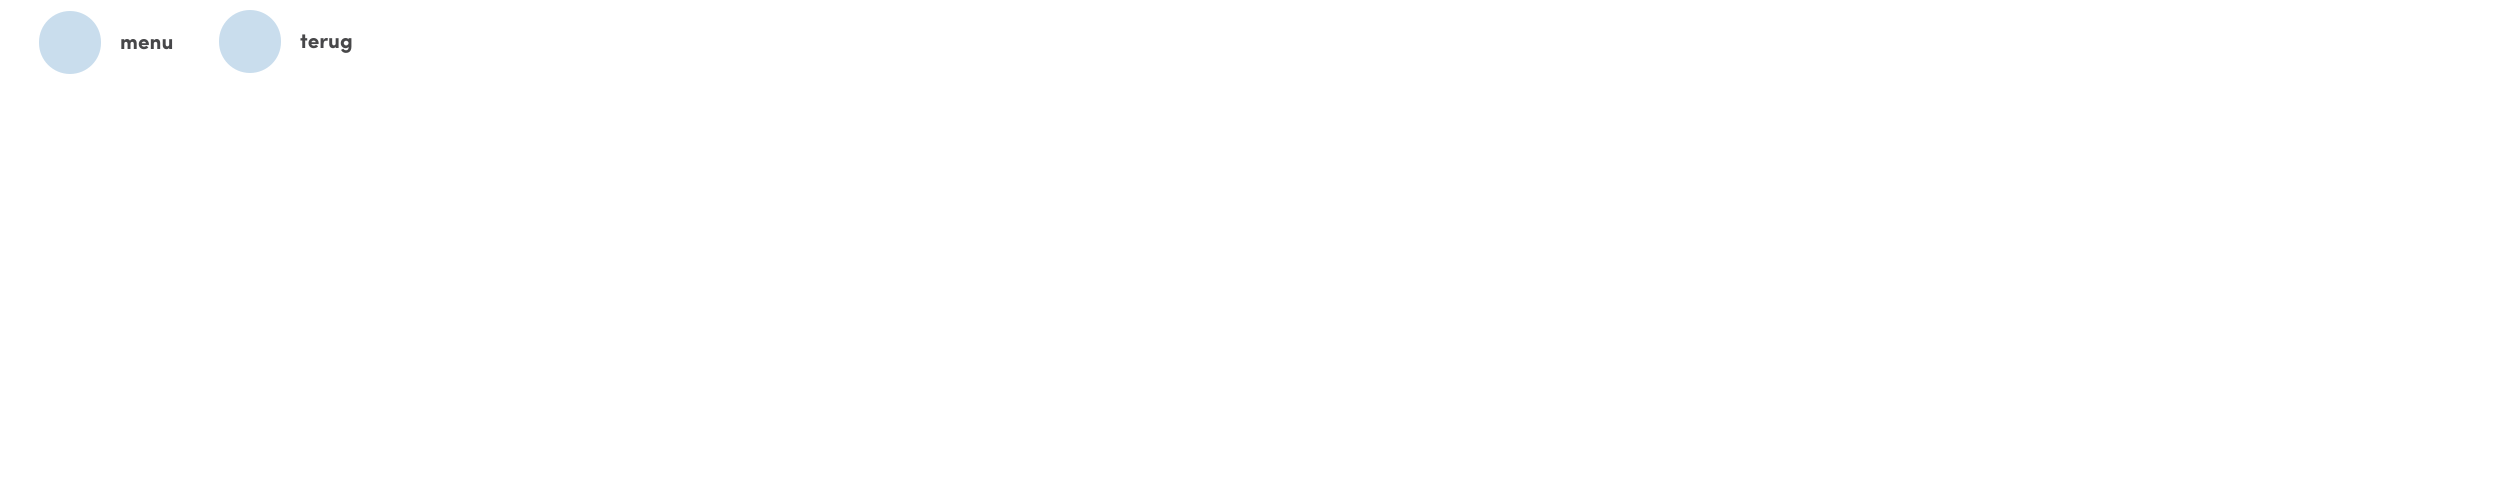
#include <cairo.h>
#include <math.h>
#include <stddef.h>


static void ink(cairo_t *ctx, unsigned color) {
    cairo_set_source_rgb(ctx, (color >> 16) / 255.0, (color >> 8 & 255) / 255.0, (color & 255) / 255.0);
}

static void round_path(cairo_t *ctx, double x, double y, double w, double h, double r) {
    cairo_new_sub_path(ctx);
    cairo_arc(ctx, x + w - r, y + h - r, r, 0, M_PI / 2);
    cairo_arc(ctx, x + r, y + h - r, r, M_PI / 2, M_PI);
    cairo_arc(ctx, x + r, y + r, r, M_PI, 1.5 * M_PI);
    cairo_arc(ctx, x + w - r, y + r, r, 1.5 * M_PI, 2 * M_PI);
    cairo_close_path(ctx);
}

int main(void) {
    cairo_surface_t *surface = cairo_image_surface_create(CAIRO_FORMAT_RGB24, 2518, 478);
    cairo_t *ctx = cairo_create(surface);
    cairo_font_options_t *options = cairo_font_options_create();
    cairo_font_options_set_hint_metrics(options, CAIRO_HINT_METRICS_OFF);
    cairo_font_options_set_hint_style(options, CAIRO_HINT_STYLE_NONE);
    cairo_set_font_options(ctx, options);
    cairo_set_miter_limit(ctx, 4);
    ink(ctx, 0xFFFFFF);
    cairo_paint(ctx);
    ink(ctx, 0xC9DDED);
    round_path(ctx, 39, 11, 62, 63, 31);
    cairo_fill(ctx);
    cairo_select_font_face(ctx, "Sofia", CAIRO_FONT_SLANT_NORMAL, CAIRO_FONT_WEIGHT_BOLD);
    cairo_set_font_size(ctx, 21);
    ink(ctx, 0x474749);
    cairo_move_to(ctx, 120, 49);
    cairo_show_text(ctx, "menu");
    ink(ctx, 0xC9DDED);
    round_path(ctx, 219, 10, 62, 63, 31);
    cairo_fill(ctx);
    ink(ctx, 0x474749);
    cairo_move_to(ctx, 300, 48);
    cairo_show_text(ctx, "terug");
    cairo_surface_write_to_png(surface, "image.png");
    cairo_font_options_destroy(options);
    cairo_destroy(ctx);
    cairo_surface_destroy(surface);
    return 0;
}
